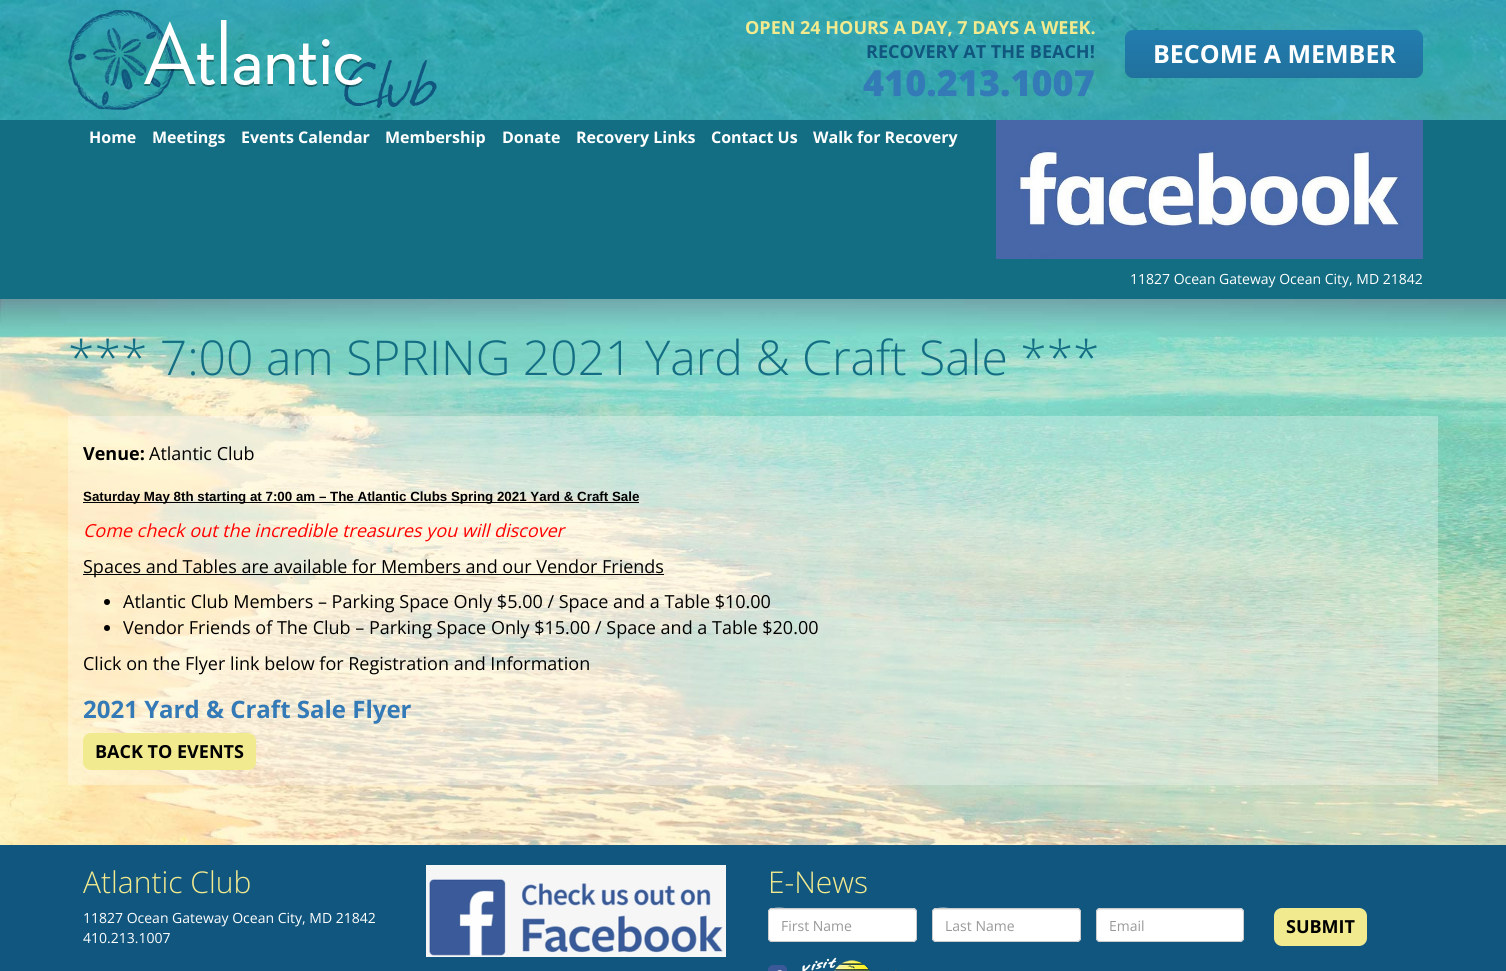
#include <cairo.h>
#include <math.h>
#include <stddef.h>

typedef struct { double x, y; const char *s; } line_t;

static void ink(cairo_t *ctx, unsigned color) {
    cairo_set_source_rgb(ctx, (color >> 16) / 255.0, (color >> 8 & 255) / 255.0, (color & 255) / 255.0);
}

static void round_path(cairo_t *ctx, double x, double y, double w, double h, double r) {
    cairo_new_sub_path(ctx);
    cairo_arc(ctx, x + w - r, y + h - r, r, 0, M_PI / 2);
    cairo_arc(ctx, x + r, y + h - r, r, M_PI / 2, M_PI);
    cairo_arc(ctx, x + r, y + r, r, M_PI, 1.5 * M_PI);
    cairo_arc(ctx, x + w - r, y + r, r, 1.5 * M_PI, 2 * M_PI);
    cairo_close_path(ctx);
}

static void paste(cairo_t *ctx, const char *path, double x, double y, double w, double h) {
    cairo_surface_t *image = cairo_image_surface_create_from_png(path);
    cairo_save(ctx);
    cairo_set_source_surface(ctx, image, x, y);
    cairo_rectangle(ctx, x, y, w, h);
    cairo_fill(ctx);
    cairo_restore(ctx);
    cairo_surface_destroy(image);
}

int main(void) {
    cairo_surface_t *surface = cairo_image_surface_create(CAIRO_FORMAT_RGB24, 1506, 971);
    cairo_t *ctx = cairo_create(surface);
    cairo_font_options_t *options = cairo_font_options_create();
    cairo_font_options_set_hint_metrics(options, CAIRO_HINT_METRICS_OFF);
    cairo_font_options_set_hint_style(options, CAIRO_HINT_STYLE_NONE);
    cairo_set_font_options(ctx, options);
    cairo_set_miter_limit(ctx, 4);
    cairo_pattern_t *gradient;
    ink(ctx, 0x10567E);
    cairo_paint(ctx);
    paste(ctx, "media/1.png", 0, 0, 1506, 120);
    paste(ctx, "media/2.png", 68, 10, 369, 100);
    cairo_select_font_face(ctx, "Open Sans", CAIRO_FONT_SLANT_NORMAL, CAIRO_FONT_WEIGHT_BOLD);
    cairo_set_font_size(ctx, 18);
    ink(ctx, 0xF2EA8F);
    cairo_move_to(ctx, 745, 34);
    cairo_show_text(ctx, "OPEN 24 HOURS A DAY, 7 DAYS A WEEK.");
    ink(ctx, 0x10567E);
    cairo_move_to(ctx, 866, 58);
    cairo_show_text(ctx, "RECOVERY AT THE BEACH!");
    cairo_select_font_face(ctx, "Open Sans ExtraBold", CAIRO_FONT_SLANT_NORMAL, CAIRO_FONT_WEIGHT_NORMAL);
    cairo_set_font_size(ctx, 36);
    ink(ctx, 0x337AB7);
    cairo_move_to(ctx, 863, 96);
    cairo_show_text(ctx, "410.213.1007");
    gradient = cairo_pattern_create_linear(1274, 30, 1274, 78);
    cairo_pattern_add_color_stop_rgba(gradient, 0, 0.133, 0.49, 0.686, 1);
    cairo_pattern_add_color_stop_rgba(gradient, 1, 0.129, 0.443, 0.616, 1);
    cairo_set_source(ctx, gradient);
    cairo_pattern_destroy(gradient);
    round_path(ctx, 1125, 30, 298, 48, 8);
    cairo_fill(ctx);
    cairo_select_font_face(ctx, "Open Sans", CAIRO_FONT_SLANT_NORMAL, CAIRO_FONT_WEIGHT_BOLD);
    cairo_set_font_size(ctx, 25);
    ink(ctx, 0xFFFFFF);
    cairo_move_to(ctx, 1153, 63);
    cairo_show_text(ctx, "BECOME A MEMBER");
    ink(ctx, 0x136E83);
    cairo_rectangle(ctx, 0, 120, 1506, 179);
    cairo_fill(ctx);
    cairo_set_font_size(ctx, 16);
    ink(ctx, 0xFFFFFF);
    {
        static const line_t items[] = {
            {89, 143, "Home"},
            {152, 143, "Meetings"},
            {241, 143, "Events Calendar"},
            {385, 143, "Membership"},
            {502, 143, "Donate"},
            {576, 143, "Recovery Links"},
            {711, 143, "Contact Us"},
            {813, 143, "Walk for Recovery"},
        };
        for (size_t i = 0; i < sizeof items / sizeof *items; i++) {
            cairo_move_to(ctx, items[i].x, items[i].y);
            cairo_show_text(ctx, items[i].s);
        }
    }
    paste(ctx, "media/3.png", 996, 120, 427, 139);
    cairo_select_font_face(ctx, "Open Sans", CAIRO_FONT_SLANT_NORMAL, CAIRO_FONT_WEIGHT_NORMAL);
    cairo_set_font_size(ctx, 14);
    cairo_move_to(ctx, 1130, 284);
    cairo_show_text(ctx, "11827 Ocean Gateway Ocean City, MD 21842");
    paste(ctx, "media/4.png", 0, 299, 1506, 546);
    cairo_select_font_face(ctx, "Open Sans Light", CAIRO_FONT_SLANT_NORMAL, CAIRO_FONT_WEIGHT_NORMAL);
    cairo_set_font_size(ctx, 48);
    ink(ctx, 0x136E83);
    cairo_move_to(ctx, 68, 375);
    cairo_show_text(ctx, "*** 7:00 am SPRING 2021 Yard & Craft Sale ***");
    cairo_set_source_rgba(ctx, 1, 1, 1, 0.3);
    cairo_rectangle(ctx, 68, 416, 1370, 369);
    cairo_fill(ctx);
    cairo_select_font_face(ctx, "Open Sans", CAIRO_FONT_SLANT_NORMAL, CAIRO_FONT_WEIGHT_BOLD);
    cairo_set_font_size(ctx, 18);
    ink(ctx, 0x000000);
    cairo_move_to(ctx, 83, 460);
    cairo_show_text(ctx, "Venue:");
    cairo_select_font_face(ctx, "Open Sans", CAIRO_FONT_SLANT_NORMAL, CAIRO_FONT_WEIGHT_NORMAL);
    cairo_move_to(ctx, 149, 460);
    cairo_show_text(ctx, "Atlantic Club");
    cairo_rectangle(ctx, 83, 502, 556, 1);
    cairo_fill(ctx);
    cairo_select_font_face(ctx, "Liberation Sans", CAIRO_FONT_SLANT_NORMAL, CAIRO_FONT_WEIGHT_BOLD);
    cairo_set_font_size(ctx, 13.35);
    cairo_move_to(ctx, 83, 501);
    cairo_show_text(ctx, "Saturday May 8th starting at 7:00 am – The Atlantic Clubs Spring 2021 Yard & Craft Sale");
    cairo_select_font_face(ctx, "Open Sans", CAIRO_FONT_SLANT_ITALIC, CAIRO_FONT_WEIGHT_NORMAL);
    cairo_set_font_size(ctx, 18);
    ink(ctx, 0xFF0000);
    cairo_move_to(ctx, 83, 537);
    cairo_show_text(ctx, "Come check out the incredible treasures you will discover");
    ink(ctx, 0x000000);
    cairo_rectangle(ctx, 83, 574, 581, 1);
    cairo_fill(ctx);
    cairo_select_font_face(ctx, "Open Sans", CAIRO_FONT_SLANT_NORMAL, CAIRO_FONT_WEIGHT_NORMAL);
    cairo_move_to(ctx, 83, 573);
    cairo_show_text(ctx, "Spaces and Tables are available for Members and our Vendor Friends");
    cairo_new_path(ctx);
    cairo_arc(ctx, 107, 602, 3, 0, 2 * M_PI);
    cairo_fill(ctx);
    cairo_move_to(ctx, 123, 608);
    cairo_show_text(ctx, "Atlantic Club Members – Parking Space Only $5.00 / Space and a Table $10.00");
    cairo_new_path(ctx);
    cairo_arc(ctx, 107, 628, 3, 0, 2 * M_PI);
    cairo_fill(ctx);
    cairo_move_to(ctx, 123, 634);
    cairo_show_text(ctx, "Vendor Friends of The Club – Parking Space Only $15.00 / Space and a Table $20.00");
    cairo_move_to(ctx, 83, 670);
    cairo_show_text(ctx, "Click on the Flyer link below for Registration and Information");
    cairo_select_font_face(ctx, "Open Sans", CAIRO_FONT_SLANT_NORMAL, CAIRO_FONT_WEIGHT_BOLD);
    cairo_set_font_size(ctx, 24);
    ink(ctx, 0x337AB7);
    cairo_move_to(ctx, 83, 718);
    cairo_show_text(ctx, "2021 Yard & Craft Sale Flyer");
    ink(ctx, 0xF2EA8F);
    round_path(ctx, 83, 733, 173, 37, 8);
    cairo_fill(ctx);
    cairo_set_font_size(ctx, 18);
    ink(ctx, 0x000000);
    cairo_move_to(ctx, 95, 758);
    cairo_show_text(ctx, "BACK TO EVENTS");
    cairo_select_font_face(ctx, "Open Sans Light", CAIRO_FONT_SLANT_NORMAL, CAIRO_FONT_WEIGHT_NORMAL);
    cairo_set_font_size(ctx, 30);
    ink(ctx, 0xF2EA8F);
    cairo_move_to(ctx, 83, 893);
    cairo_show_text(ctx, "Atlantic Club");
    cairo_select_font_face(ctx, "Open Sans", CAIRO_FONT_SLANT_NORMAL, CAIRO_FONT_WEIGHT_NORMAL);
    cairo_set_font_size(ctx, 14);
    ink(ctx, 0xFFFFFF);
    cairo_move_to(ctx, 83, 923);
    cairo_show_text(ctx, "11827 Ocean Gateway Ocean City, MD 21842");
    cairo_move_to(ctx, 83, 943);
    cairo_show_text(ctx, "410.213.1007");
    paste(ctx, "media/5.png", 426, 865, 300, 92);
    cairo_select_font_face(ctx, "Open Sans Light", CAIRO_FONT_SLANT_NORMAL, CAIRO_FONT_WEIGHT_NORMAL);
    cairo_set_font_size(ctx, 30);
    ink(ctx, 0xF2EA8F);
    cairo_move_to(ctx, 768, 893);
    cairo_show_text(ctx, "E-News");
    ink(ctx, 0xFFFFFF);
    round_path(ctx, 768, 908, 149, 34, 4);
    cairo_fill(ctx);
    ink(ctx, 0xECECEC);
    cairo_new_path(ctx);
    cairo_move_to(ctx, 772, 910);
    cairo_line_to(ctx, 913, 910);
    cairo_curve_to(ctx, 915, 910, 916, 911, 916, 913);
    cairo_curve_to(ctx, 916, 911, 916, 910, 914, 909);
    cairo_line_to(ctx, 796, 909);
    cairo_curve_to(ctx, 788, 909, 769, 904, 769, 913);
    cairo_curve_to(ctx, 769, 911, 770, 910, 772, 910);
    cairo_close_path(ctx);
    cairo_fill(ctx);
    round_path(ctx, 768.5, 908.5, 148, 33, 3.5);
    ink(ctx, 0xCCCCCC);
    cairo_set_line_width(ctx, 1);
    cairo_stroke(ctx);
    cairo_select_font_face(ctx, "Open Sans", CAIRO_FONT_SLANT_NORMAL, CAIRO_FONT_WEIGHT_NORMAL);
    cairo_set_font_size(ctx, 14);
    ink(ctx, 0x999999);
    cairo_move_to(ctx, 781, 931);
    cairo_show_text(ctx, "First Name");
    ink(ctx, 0xFFFFFF);
    round_path(ctx, 932, 908, 149, 34, 4);
    cairo_fill(ctx);
    ink(ctx, 0xECECEC);
    cairo_new_path(ctx);
    cairo_move_to(ctx, 936, 910);
    cairo_line_to(ctx, 1077, 910);
    cairo_curve_to(ctx, 1079, 910, 1080, 911, 1080, 913);
    cairo_curve_to(ctx, 1080, 911, 1080, 910, 1078, 909);
    cairo_line_to(ctx, 960, 909);
    cairo_curve_to(ctx, 952, 909, 933, 904, 933, 913);
    cairo_curve_to(ctx, 933, 911, 934, 910, 936, 910);
    cairo_close_path(ctx);
    cairo_fill(ctx);
    round_path(ctx, 932.5, 908.5, 148, 33, 3.5);
    ink(ctx, 0xCCCCCC);
    cairo_stroke(ctx);
    ink(ctx, 0x999999);
    cairo_move_to(ctx, 945, 931);
    cairo_show_text(ctx, "Last Name");
    ink(ctx, 0xFFFFFF);
    round_path(ctx, 1096, 908, 148, 34, 4);
    cairo_fill(ctx);
    ink(ctx, 0xECECEC);
    cairo_new_path(ctx);
    cairo_move_to(ctx, 1100, 910);
    cairo_line_to(ctx, 1240, 910);
    cairo_curve_to(ctx, 1242, 910, 1243, 911, 1243, 913);
    cairo_line_to(ctx, 1243, 912);
    cairo_curve_to(ctx, 1243, 910, 1242, 909, 1240, 909);
    cairo_line_to(ctx, 1100, 909);
    cairo_curve_to(ctx, 1098, 909, 1097, 910, 1097, 912);
    cairo_line_to(ctx, 1097, 913);
    cairo_curve_to(ctx, 1097, 911, 1098, 910, 1100, 910);
    cairo_close_path(ctx);
    cairo_fill(ctx);
    round_path(ctx, 1096.5, 908.5, 147, 33, 3.5);
    ink(ctx, 0xCCCCCC);
    cairo_stroke(ctx);
    ink(ctx, 0x999999);
    cairo_move_to(ctx, 1109, 931);
    cairo_show_text(ctx, "Email");
    ink(ctx, 0xF2EA8F);
    round_path(ctx, 1274, 908, 93, 38, 8);
    cairo_fill(ctx);
    cairo_select_font_face(ctx, "Open Sans", CAIRO_FONT_SLANT_NORMAL, CAIRO_FONT_WEIGHT_BOLD);
    cairo_set_font_size(ctx, 18);
    ink(ctx, 0x000000);
    cairo_move_to(ctx, 1286, 933);
    cairo_show_text(ctx, "SUBMIT");
    ink(ctx, 0x3B5998);
    round_path(ctx, 768, 965, 19, 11, 5);
    cairo_fill(ctx);
    paste(ctx, "media/6.png", 802, 957, 95, 14);
    paste(ctx, "media/7.png", 777, 970, 5, 1);
    cairo_surface_write_to_png(surface, "image.png");
    cairo_font_options_destroy(options);
    cairo_destroy(ctx);
    cairo_surface_destroy(surface);
    return 0;
}
